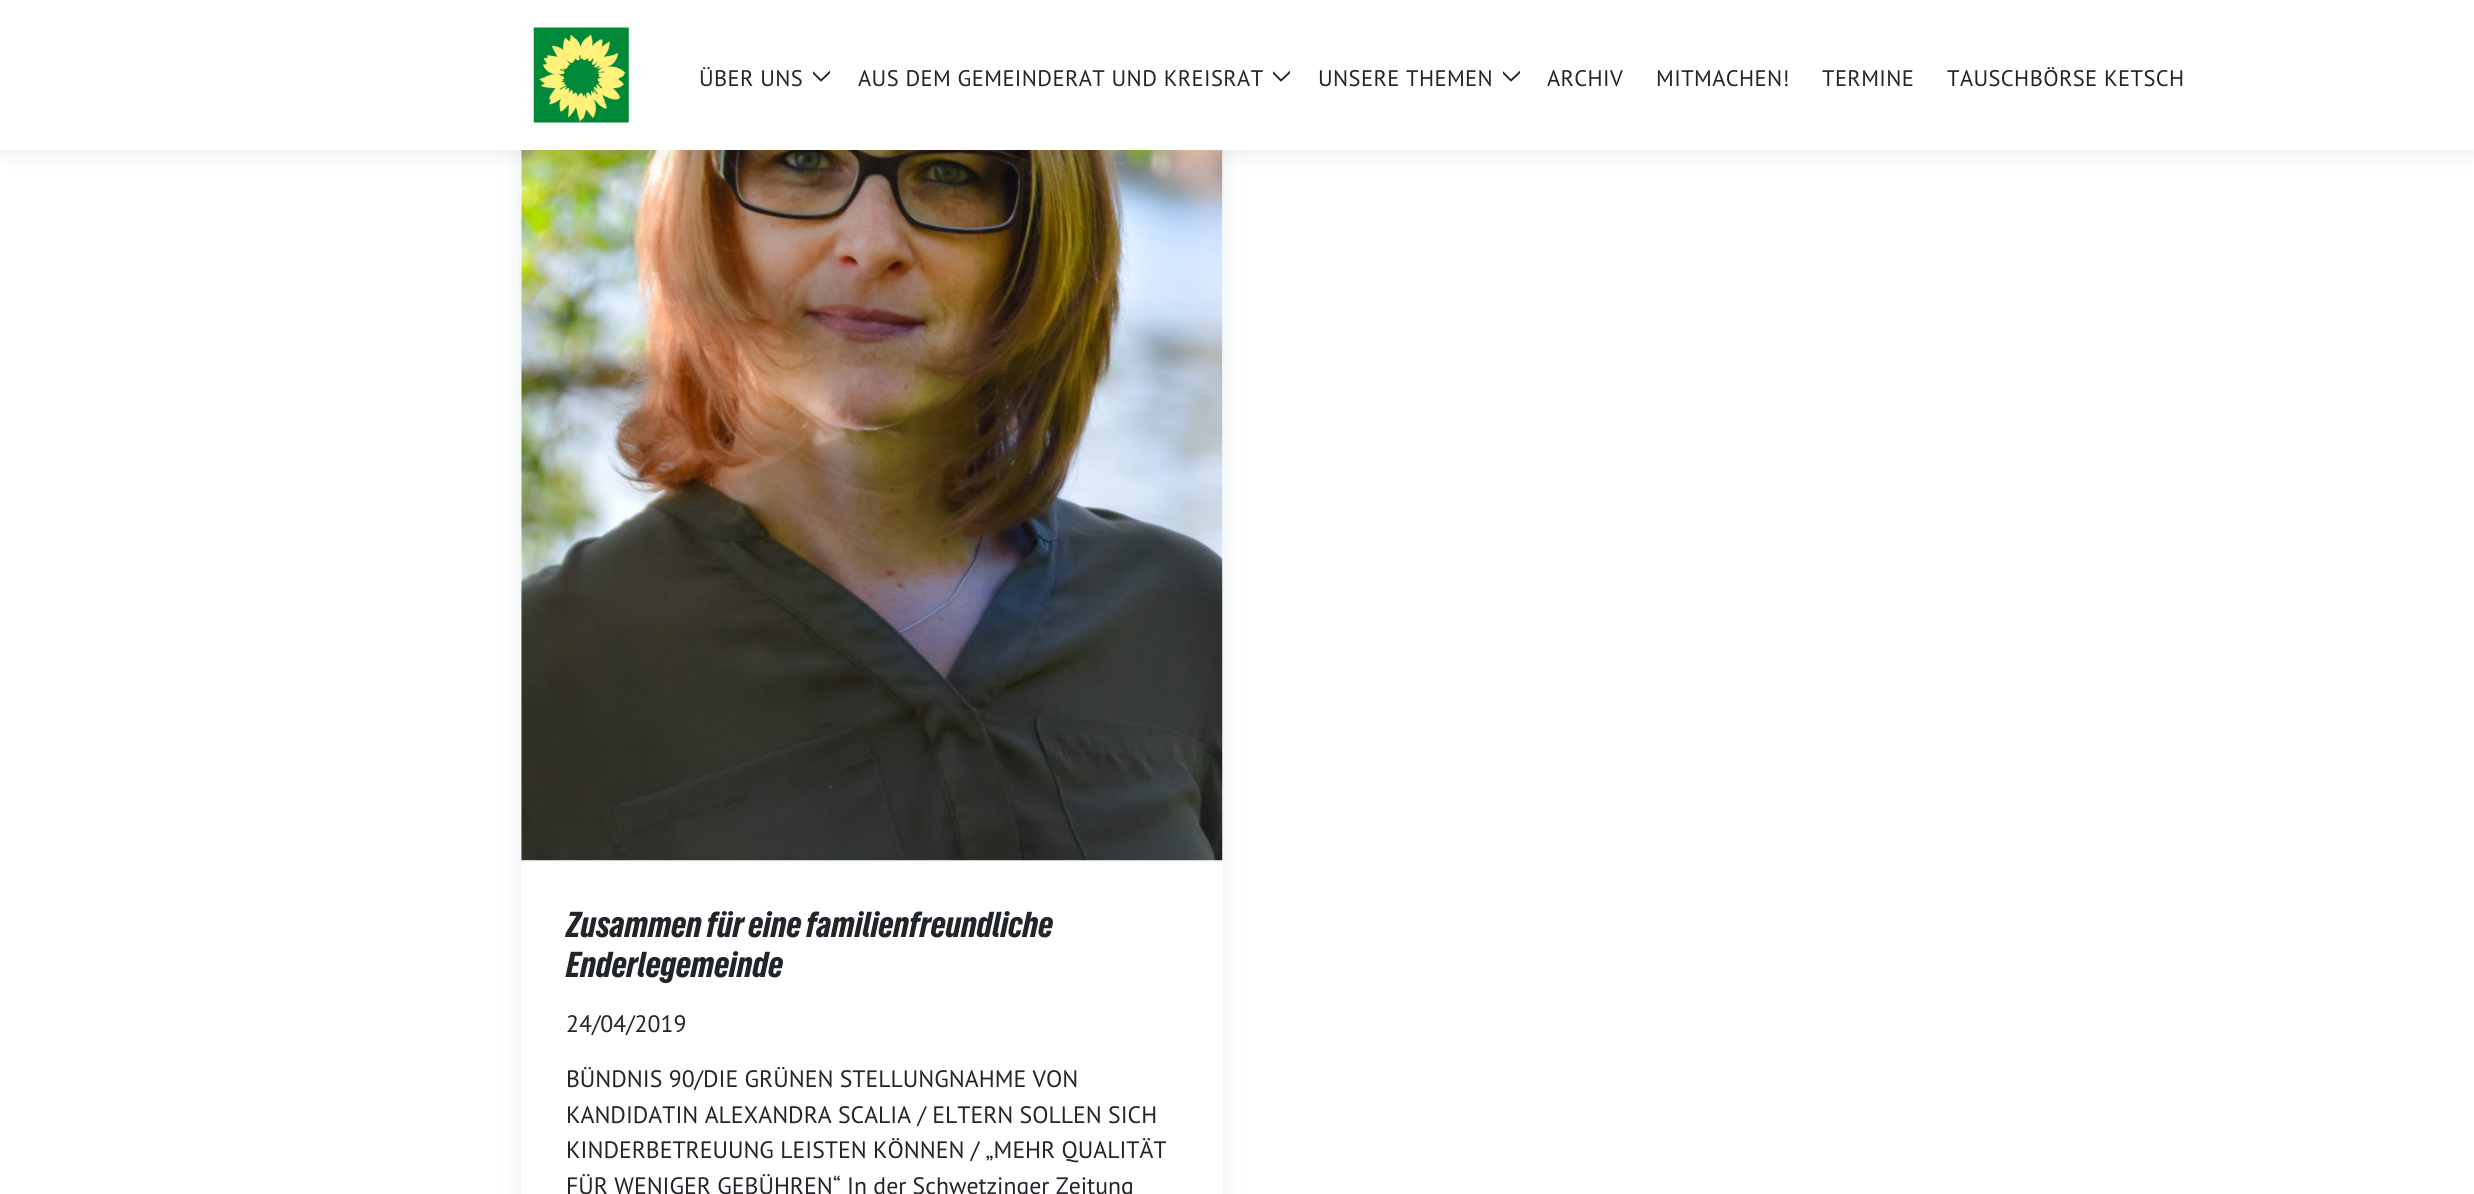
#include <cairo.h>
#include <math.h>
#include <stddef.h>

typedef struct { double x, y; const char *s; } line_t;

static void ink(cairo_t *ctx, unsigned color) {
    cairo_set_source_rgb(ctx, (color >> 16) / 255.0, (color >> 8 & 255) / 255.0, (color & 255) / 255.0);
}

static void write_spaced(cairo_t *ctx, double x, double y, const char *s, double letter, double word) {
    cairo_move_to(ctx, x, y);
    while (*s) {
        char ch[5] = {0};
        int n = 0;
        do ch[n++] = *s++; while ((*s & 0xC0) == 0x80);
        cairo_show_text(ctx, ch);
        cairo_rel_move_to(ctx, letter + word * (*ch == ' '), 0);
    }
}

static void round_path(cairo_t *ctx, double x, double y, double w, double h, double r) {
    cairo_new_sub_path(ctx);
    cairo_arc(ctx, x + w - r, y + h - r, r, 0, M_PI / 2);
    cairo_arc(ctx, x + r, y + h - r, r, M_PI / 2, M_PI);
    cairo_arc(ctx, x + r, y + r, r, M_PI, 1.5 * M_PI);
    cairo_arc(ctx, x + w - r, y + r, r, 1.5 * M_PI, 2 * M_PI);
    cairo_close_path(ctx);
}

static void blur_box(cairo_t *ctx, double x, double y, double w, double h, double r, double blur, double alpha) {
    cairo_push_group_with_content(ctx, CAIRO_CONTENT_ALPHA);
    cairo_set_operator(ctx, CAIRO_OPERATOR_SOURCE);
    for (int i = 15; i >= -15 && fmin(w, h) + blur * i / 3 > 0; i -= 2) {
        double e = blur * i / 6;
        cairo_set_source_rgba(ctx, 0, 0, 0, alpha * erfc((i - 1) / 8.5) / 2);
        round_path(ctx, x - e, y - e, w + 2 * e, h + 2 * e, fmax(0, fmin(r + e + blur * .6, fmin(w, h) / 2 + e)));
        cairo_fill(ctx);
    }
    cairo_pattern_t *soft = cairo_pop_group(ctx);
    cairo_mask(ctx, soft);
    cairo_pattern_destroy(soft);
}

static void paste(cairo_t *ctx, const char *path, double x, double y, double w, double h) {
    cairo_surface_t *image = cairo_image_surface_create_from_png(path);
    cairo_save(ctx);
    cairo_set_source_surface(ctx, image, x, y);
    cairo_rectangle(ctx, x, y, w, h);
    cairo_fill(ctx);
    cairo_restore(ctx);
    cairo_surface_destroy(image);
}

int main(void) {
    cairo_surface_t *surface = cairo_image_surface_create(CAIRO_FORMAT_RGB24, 2474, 1194);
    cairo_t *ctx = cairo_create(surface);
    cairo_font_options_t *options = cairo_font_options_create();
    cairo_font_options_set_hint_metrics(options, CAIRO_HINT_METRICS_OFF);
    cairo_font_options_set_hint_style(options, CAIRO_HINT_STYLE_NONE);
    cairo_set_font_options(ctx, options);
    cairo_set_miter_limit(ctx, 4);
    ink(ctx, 0xFFFFFF);
    cairo_paint(ctx);
    ink(ctx, 0x005437);
    blur_box(ctx, 521, -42, 702, 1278, 4, 12.5, 0.09);
    ink(ctx, 0xFFFFFF);
    cairo_rectangle(ctx, 521, 150, 702, 1044);
    cairo_fill(ctx);
    paste(ctx, "media/2.png", 521, 150, 702, 711);
    ink(ctx, 0x000000);
    blur_box(ctx, 0, 1, 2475, 150, 0, 12.5, 0.08);
    ink(ctx, 0xFFFFFF);
    cairo_rectangle(ctx, 0, 0, 2474, 150);
    cairo_fill(ctx);
    paste(ctx, "media/1.png", 533, 27, 96, 96);
    cairo_select_font_face(ctx, "PT Sans", CAIRO_FONT_SLANT_NORMAL, CAIRO_FONT_WEIGHT_NORMAL);
    cairo_set_font_size(ctx, 22.5);
    ink(ctx, 0x212529);
    write_spaced(ctx, 699, 86, "ÜBER UNS", 0.4, 0);
    cairo_save(ctx);
    cairo_rectangle(ctx, 813, 60, 17, 30);
    cairo_clip(ctx);
    cairo_new_path(ctx);
    cairo_move_to(ctx, 810, 69.5);
    cairo_line_to(ctx, 821, 80.5);
    cairo_line_to(ctx, 832.5, 69.5);
    cairo_set_line_width(ctx, 1.9);
    cairo_set_line_cap(ctx, CAIRO_LINE_CAP_ROUND);
    cairo_set_line_join(ctx, CAIRO_LINE_JOIN_ROUND);
    cairo_stroke(ctx);
    cairo_restore(ctx);
    write_spaced(ctx, 858, 86, "AUS DEM GEMEINDERAT UND KREISRAT", 0.4, 0);
    cairo_save(ctx);
    cairo_rectangle(ctx, 1273, 60, 17, 30);
    cairo_clip(ctx);
    cairo_new_path(ctx);
    cairo_move_to(ctx, 1270, 69.5);
    cairo_line_to(ctx, 1281, 80.5);
    cairo_line_to(ctx, 1292.5, 69.5);
    cairo_set_line_width(ctx, 1.9);
    cairo_set_line_cap(ctx, CAIRO_LINE_CAP_ROUND);
    cairo_set_line_join(ctx, CAIRO_LINE_JOIN_ROUND);
    cairo_stroke(ctx);
    cairo_restore(ctx);
    write_spaced(ctx, 1318, 86, "UNSERE THEMEN", 0.4, 0);
    cairo_save(ctx);
    cairo_rectangle(ctx, 1503, 60, 17, 30);
    cairo_clip(ctx);
    cairo_new_path(ctx);
    cairo_move_to(ctx, 1500, 69.5);
    cairo_line_to(ctx, 1511, 80.5);
    cairo_line_to(ctx, 1522.5, 69.5);
    cairo_set_line_width(ctx, 1.9);
    cairo_set_line_cap(ctx, CAIRO_LINE_CAP_ROUND);
    cairo_set_line_join(ctx, CAIRO_LINE_JOIN_ROUND);
    cairo_stroke(ctx);
    cairo_restore(ctx);
    {
        static const line_t items[] = {
            {1547, 86, "ARCHIV"},
            {1656, 86, "MITMACHEN!"},
            {1822, 86, "TERMINE"},
            {1947, 86, "TAUSCHBÖRSE KETSCH"},
        };
        for (size_t i = 0; i < sizeof items / sizeof *items; i++) {
            write_spaced(ctx, items[i].x, items[i].y, items[i].s, 0.4, 0);
        }
    }
    cairo_select_font_face(ctx, "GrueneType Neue", CAIRO_FONT_SLANT_NORMAL, CAIRO_FONT_WEIGHT_NORMAL);
    cairo_set_font_size(ctx, 33.75);
    cairo_move_to(ctx, 566, 937);
    cairo_show_text(ctx, "Zusammen für eine familienfreundliche");
    cairo_move_to(ctx, 566, 977);
    cairo_show_text(ctx, "Enderlegemeinde");
    cairo_select_font_face(ctx, "PT Sans", CAIRO_FONT_SLANT_NORMAL, CAIRO_FONT_WEIGHT_NORMAL);
    cairo_set_font_size(ctx, 23.75);
    {
        static const line_t items[] = {
            {566, 1032, "24/04/2019"},
            {566, 1087, "BÜNDNIS 90/DIE GRÜNEN STELLUNGNAHME VON"},
            {566, 1123, "KANDIDATIN ALEXANDRA SCALIA / ELTERN SOLLEN SICH"},
            {566, 1158, "KINDERBETREUUNG LEISTEN KÖNNEN / „MEHR QUALITÄT"},
            {566, 1194, "FÜR WENIGER GEBÜHREN“ In der Schwetzinger Zeitung"},
        };
        for (size_t i = 0; i < sizeof items / sizeof *items; i++) {
            cairo_move_to(ctx, items[i].x, items[i].y);
            cairo_show_text(ctx, items[i].s);
        }
    }
    cairo_surface_write_to_png(surface, "image.png");
    cairo_font_options_destroy(options);
    cairo_destroy(ctx);
    cairo_surface_destroy(surface);
    return 0;
}
